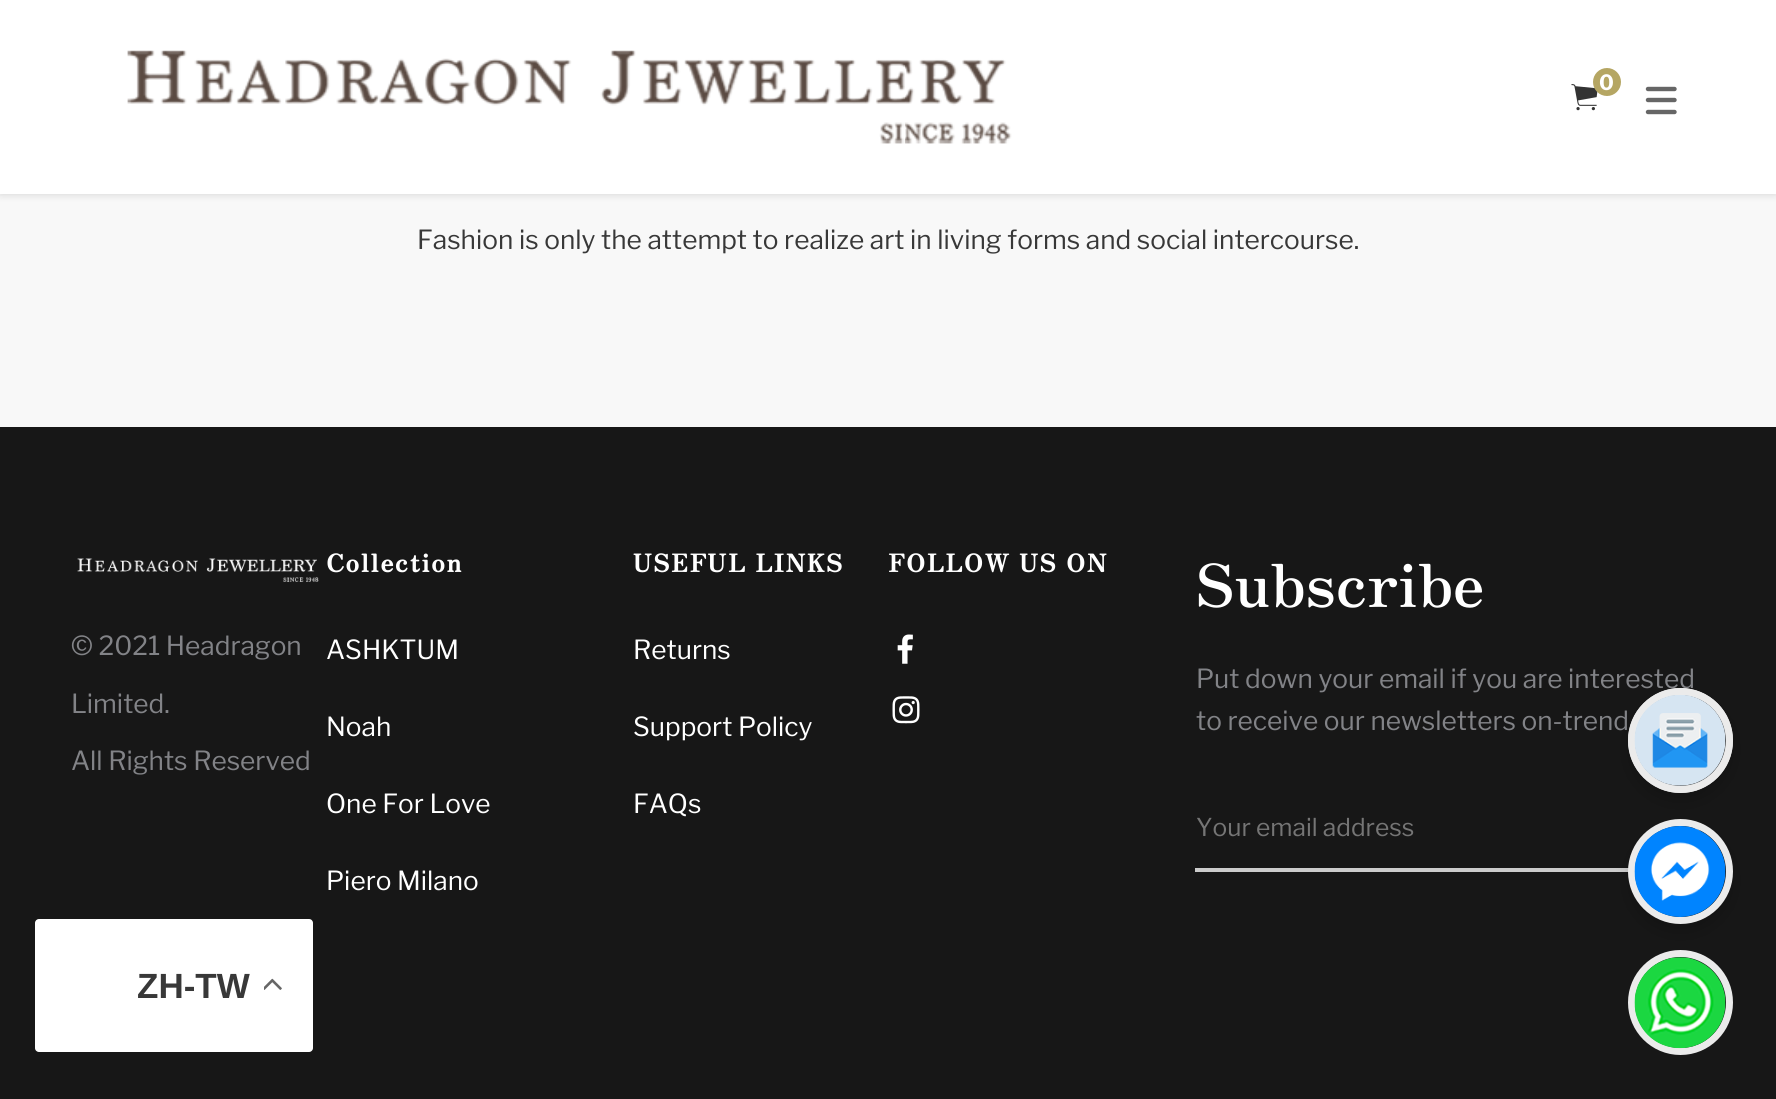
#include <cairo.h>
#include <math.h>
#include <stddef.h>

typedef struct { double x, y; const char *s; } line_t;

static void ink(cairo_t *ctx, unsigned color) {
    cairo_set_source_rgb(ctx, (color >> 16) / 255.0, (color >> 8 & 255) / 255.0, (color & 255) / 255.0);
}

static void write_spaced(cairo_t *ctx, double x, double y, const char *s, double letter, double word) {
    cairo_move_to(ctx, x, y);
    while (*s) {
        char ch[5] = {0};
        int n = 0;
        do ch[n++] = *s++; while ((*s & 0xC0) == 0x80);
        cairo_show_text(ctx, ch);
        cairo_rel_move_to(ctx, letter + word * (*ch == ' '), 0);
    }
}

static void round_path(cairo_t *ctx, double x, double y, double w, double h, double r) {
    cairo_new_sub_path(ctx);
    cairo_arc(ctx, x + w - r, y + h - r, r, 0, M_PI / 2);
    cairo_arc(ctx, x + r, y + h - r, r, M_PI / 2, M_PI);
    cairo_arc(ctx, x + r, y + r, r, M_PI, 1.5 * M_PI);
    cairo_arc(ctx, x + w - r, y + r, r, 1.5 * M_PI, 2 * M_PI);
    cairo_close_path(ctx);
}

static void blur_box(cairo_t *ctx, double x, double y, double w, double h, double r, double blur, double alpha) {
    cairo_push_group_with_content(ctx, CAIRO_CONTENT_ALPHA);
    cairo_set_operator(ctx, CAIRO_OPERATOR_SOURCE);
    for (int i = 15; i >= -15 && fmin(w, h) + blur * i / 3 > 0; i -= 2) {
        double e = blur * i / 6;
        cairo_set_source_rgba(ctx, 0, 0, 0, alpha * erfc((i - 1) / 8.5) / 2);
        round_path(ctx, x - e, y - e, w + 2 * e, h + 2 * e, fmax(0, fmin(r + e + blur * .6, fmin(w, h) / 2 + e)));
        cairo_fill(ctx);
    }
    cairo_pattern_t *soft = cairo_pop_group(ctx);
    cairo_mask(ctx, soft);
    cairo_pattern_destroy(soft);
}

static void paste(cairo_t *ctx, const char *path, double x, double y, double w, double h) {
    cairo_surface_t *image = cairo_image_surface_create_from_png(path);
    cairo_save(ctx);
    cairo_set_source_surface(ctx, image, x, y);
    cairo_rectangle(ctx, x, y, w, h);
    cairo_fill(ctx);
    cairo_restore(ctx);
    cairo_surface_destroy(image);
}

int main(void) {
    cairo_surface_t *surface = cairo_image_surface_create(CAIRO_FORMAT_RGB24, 1776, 1099);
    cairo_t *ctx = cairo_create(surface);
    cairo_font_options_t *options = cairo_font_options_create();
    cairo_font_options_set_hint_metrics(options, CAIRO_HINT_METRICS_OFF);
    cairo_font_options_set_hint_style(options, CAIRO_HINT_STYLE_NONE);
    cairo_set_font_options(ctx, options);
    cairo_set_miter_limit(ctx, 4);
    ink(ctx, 0xF8F8F8);
    cairo_paint(ctx);
    ink(ctx, 0x000000);
    blur_box(ctx, 0, 0, 1776, 194, 0, 4.5, 0.15);
    ink(ctx, 0xFFFFFF);
    cairo_rectangle(ctx, 0, 0, 1776, 194);
    cairo_fill(ctx);
    paste(ctx, "media/1.png", 127, 50, 885, 94);
    paste(ctx, "media/2.png", 1571, 84, 27, 27);
    ink(ctx, 0xB5A663);
    cairo_arc(ctx, 1607, 82, 13, 0, 2 * M_PI);
    cairo_fill_preserve(ctx);
    cairo_stroke(ctx);
    cairo_select_font_face(ctx, "Libre Franklin", CAIRO_FONT_SLANT_NORMAL, CAIRO_FONT_WEIGHT_BOLD);
    cairo_set_font_size(ctx, 21);
    ink(ctx, 0xFFFFFF);
    cairo_move_to(ctx, 1599, 90);
    cairo_show_text(ctx, "0");
    cairo_new_path(ctx);
    cairo_move_to(ctx, 1648, 89);
    cairo_line_to(ctx, 1674.5, 89);
    cairo_move_to(ctx, 1648, 100);
    cairo_line_to(ctx, 1674.5, 100);
    cairo_move_to(ctx, 1648, 112);
    cairo_line_to(ctx, 1674.5, 112);
    ink(ctx, 0x666666);
    cairo_set_line_width(ctx, 4.4);
    cairo_set_line_cap(ctx, CAIRO_LINE_CAP_ROUND);
    cairo_stroke(ctx);
    cairo_select_font_face(ctx, "Libre Franklin", CAIRO_FONT_SLANT_NORMAL, CAIRO_FONT_WEIGHT_NORMAL);
    cairo_set_font_size(ctx, 26.25);
    ink(ctx, 0x383838);
    cairo_move_to(ctx, 417, 249);
    cairo_show_text(ctx, "Fashion is only the attempt to realize art in living forms and social intercourse.");
    ink(ctx, 0x171717);
    cairo_rectangle(ctx, 0, 427, 1776, 672);
    cairo_fill(ctx);
    paste(ctx, "media/3.png", 77, 558, 242, 24);
    ink(ctx, 0x828387);
    {
        static const line_t items[] = {
            {71, 655, "© 2021 Headragon"},
            {71, 713, "Limited."},
            {71, 770, "All Rights Reserved"},
        };
        for (size_t i = 0; i < sizeof items / sizeof *items; i++) {
            cairo_move_to(ctx, items[i].x, items[i].y);
            cairo_show_text(ctx, items[i].s);
        }
    }
    cairo_select_font_face(ctx, "Zen Antique Soft", CAIRO_FONT_SLANT_NORMAL, CAIRO_FONT_WEIGHT_BOLD);
    cairo_set_font_size(ctx, 24.5);
    ink(ctx, 0xFFFFFF);
    write_spaced(ctx, 326, 572, "Collection", 1.75, 0);
    cairo_select_font_face(ctx, "Libre Franklin", CAIRO_FONT_SLANT_NORMAL, CAIRO_FONT_WEIGHT_NORMAL);
    cairo_set_font_size(ctx, 26.25);
    {
        static const line_t items[] = {
            {326, 659, "ASHKTUM"},
            {326, 736, "Noah"},
            {326, 813, "One For Love"},
            {326, 890, "Piero Milano"},
        };
        for (size_t i = 0; i < sizeof items / sizeof *items; i++) {
            cairo_move_to(ctx, items[i].x, items[i].y);
            cairo_show_text(ctx, items[i].s);
        }
    }
    cairo_select_font_face(ctx, "Zen Antique Soft", CAIRO_FONT_SLANT_NORMAL, CAIRO_FONT_WEIGHT_BOLD);
    cairo_set_font_size(ctx, 24.5);
    write_spaced(ctx, 633, 572, "USEFUL LINKS", 1.75, 0);
    cairo_select_font_face(ctx, "Libre Franklin", CAIRO_FONT_SLANT_NORMAL, CAIRO_FONT_WEIGHT_NORMAL);
    cairo_set_font_size(ctx, 26.25);
    {
        static const line_t items[] = {
            {633, 659, "Returns"},
            {633, 736, "Support Policy"},
            {633, 813, "FAQs"},
        };
        for (size_t i = 0; i < sizeof items / sizeof *items; i++) {
            cairo_move_to(ctx, items[i].x, items[i].y);
            cairo_show_text(ctx, items[i].s);
        }
    }
    cairo_select_font_face(ctx, "Zen Antique Soft", CAIRO_FONT_SLANT_NORMAL, CAIRO_FONT_WEIGHT_BOLD);
    cairo_set_font_size(ctx, 24.5);
    write_spaced(ctx, 888, 572, "FOLLOW US ON", 1.75, 0);
    paste(ctx, "media/4.png", 897, 634, 16, 30);
    paste(ctx, "media/5.png", 892, 696, 28, 28);
    cairo_select_font_face(ctx, "Zen Antique Soft", CAIRO_FONT_SLANT_NORMAL, CAIRO_FONT_WEIGHT_NORMAL);
    cairo_set_font_size(ctx, 59.5);
    cairo_move_to(ctx, 1196, 607);
    cairo_show_text(ctx, "Subscribe");
    cairo_select_font_face(ctx, "Libre Franklin", CAIRO_FONT_SLANT_NORMAL, CAIRO_FONT_WEIGHT_NORMAL);
    cairo_set_font_size(ctx, 26.25);
    ink(ctx, 0x828387);
    cairo_move_to(ctx, 1196, 688);
    cairo_show_text(ctx, "Put down your email if you are interested");
    cairo_move_to(ctx, 1196, 730);
    cairo_show_text(ctx, "to receive our newsletters on-trend");
    ink(ctx, 0xCCCCCC);
    cairo_rectangle(ctx, 1195, 868, 434, 4);
    cairo_fill(ctx);
    cairo_set_font_size(ctx, 24.5);
    ink(ctx, 0x757575);
    cairo_move_to(ctx, 1196, 836);
    cairo_show_text(ctx, "Your email address");
    paste(ctx, "media/6.png", 1693, 827, 8, 5);
    ink(ctx, 0x343434);
    cairo_arc(ctx, 1680.5, 740.5, 49, 0, 2 * M_PI);
    cairo_fill_preserve(ctx);
    ink(ctx, 0xEBEBEB);
    cairo_set_line_width(ctx, 7);
    cairo_set_line_cap(ctx, CAIRO_LINE_CAP_BUTT);
    cairo_stroke(ctx);
    cairo_arc(ctx, 1680.5, 1002.5, 49, 0, 2 * M_PI);
    cairo_stroke(ctx);
    ink(ctx, 0x000000);
    blur_box(ctx, 1628, 828, 105, 105, 52.5, 7, 0.15);
    cairo_arc(ctx, 1680.5, 871.5, 49, 0, 2 * M_PI);
    ink(ctx, 0xEBEBEB);
    cairo_stroke(ctx);
    ink(ctx, 0x000000);
    blur_box(ctx, 1628, 697, 105, 105, 52.5, 7, 0.15);
    cairo_arc(ctx, 1680.5, 740.5, 49, 0, 2 * M_PI);
    ink(ctx, 0xEBEBEB);
    cairo_stroke(ctx);
    paste(ctx, "media/7.png", 1634, 695, 92, 91);
    paste(ctx, "media/8.png", 1634, 826, 92, 91);
    ink(ctx, 0xFFFFFF);
    round_path(ctx, 35, 919, 278, 133, 4);
    cairo_fill(ctx);
    cairo_select_font_face(ctx, "Liberation Sans", CAIRO_FONT_SLANT_NORMAL, CAIRO_FONT_WEIGHT_BOLD);
    cairo_set_font_size(ctx, 35);
    ink(ctx, 0x383838);
    cairo_move_to(ctx, 137, 998);
    cairo_show_text(ctx, "ZH-TW");
    paste(ctx, "media/9.png", 264, 978, 18, 12);
    paste(ctx, "media/10.png", 1634, 957, 92, 92);
    cairo_surface_write_to_png(surface, "image.png");
    cairo_font_options_destroy(options);
    cairo_destroy(ctx);
    cairo_surface_destroy(surface);
    return 0;
}
